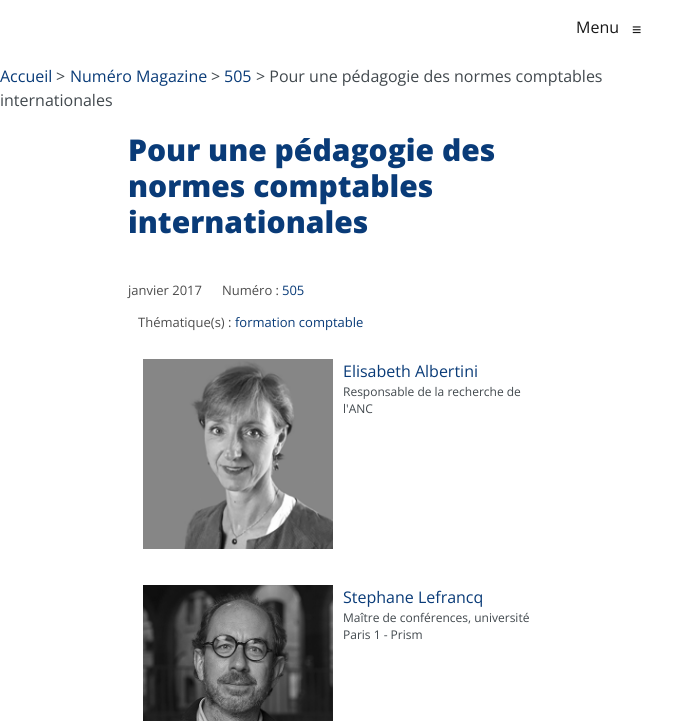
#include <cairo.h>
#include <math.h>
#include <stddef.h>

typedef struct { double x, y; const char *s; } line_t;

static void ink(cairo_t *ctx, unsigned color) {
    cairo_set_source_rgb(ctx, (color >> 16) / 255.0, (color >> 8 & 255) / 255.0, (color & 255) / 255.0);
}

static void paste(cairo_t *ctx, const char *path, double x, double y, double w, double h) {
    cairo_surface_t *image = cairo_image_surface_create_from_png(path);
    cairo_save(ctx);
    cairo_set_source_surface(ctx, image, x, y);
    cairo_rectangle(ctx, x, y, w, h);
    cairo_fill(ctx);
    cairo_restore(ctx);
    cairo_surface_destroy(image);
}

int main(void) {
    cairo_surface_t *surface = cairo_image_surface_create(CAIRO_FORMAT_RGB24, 676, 721);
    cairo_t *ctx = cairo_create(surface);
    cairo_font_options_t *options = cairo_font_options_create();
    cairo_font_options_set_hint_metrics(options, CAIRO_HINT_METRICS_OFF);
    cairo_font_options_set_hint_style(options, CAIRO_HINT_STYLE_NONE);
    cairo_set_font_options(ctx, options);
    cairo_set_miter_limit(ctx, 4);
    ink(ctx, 0xFFFFFF);
    cairo_paint(ctx);
    cairo_select_font_face(ctx, "Open Sans", CAIRO_FONT_SLANT_NORMAL, CAIRO_FONT_WEIGHT_NORMAL);
    cairo_set_font_size(ctx, 16);
    ink(ctx, 0x171717);
    cairo_move_to(ctx, 576, 33);
    cairo_show_text(ctx, "Menu");
    cairo_select_font_face(ctx, "Liberation Sans", CAIRO_FONT_SLANT_NORMAL, CAIRO_FONT_WEIGHT_NORMAL);
    cairo_move_to(ctx, 632, 35);
    cairo_show_text(ctx, "≡");
    cairo_select_font_face(ctx, "Open Sans", CAIRO_FONT_SLANT_NORMAL, CAIRO_FONT_WEIGHT_NORMAL);
    ink(ctx, 0x093B78);
    cairo_move_to(ctx, 0, 82);
    cairo_show_text(ctx, "Accueil");
    ink(ctx, 0x41484D);
    cairo_move_to(ctx, 56, 82);
    cairo_show_text(ctx, ">");
    ink(ctx, 0x093B78);
    cairo_move_to(ctx, 70, 82);
    cairo_show_text(ctx, "Numéro Magazine");
    ink(ctx, 0x41484D);
    cairo_move_to(ctx, 211, 82);
    cairo_show_text(ctx, ">");
    ink(ctx, 0x093B78);
    cairo_move_to(ctx, 224, 82);
    cairo_show_text(ctx, "505");
    ink(ctx, 0x41484D);
    cairo_move_to(ctx, 256, 82);
    cairo_show_text(ctx, "> Pour une pédagogie des normes comptables");
    cairo_move_to(ctx, 0, 106);
    cairo_show_text(ctx, "internationales");
    cairo_select_font_face(ctx, "Open Sans ExtraBold", CAIRO_FONT_SLANT_NORMAL, CAIRO_FONT_WEIGHT_NORMAL);
    cairo_set_font_size(ctx, 30);
    ink(ctx, 0x093B78);
    {
        static const line_t items[] = {
            {128, 161, "Pour une pédagogie des"},
            {128, 197, "normes comptables"},
            {128, 233, "internationales"},
        };
        for (size_t i = 0; i < sizeof items / sizeof *items; i++) {
            cairo_move_to(ctx, items[i].x, items[i].y);
            cairo_show_text(ctx, items[i].s);
        }
    }
    cairo_select_font_face(ctx, "Open Sans", CAIRO_FONT_SLANT_NORMAL, CAIRO_FONT_WEIGHT_NORMAL);
    cairo_set_font_size(ctx, 13);
    ink(ctx, 0x4D4D4D);
    cairo_move_to(ctx, 128, 295);
    cairo_show_text(ctx, "janvier 2017");
    cairo_move_to(ctx, 222, 295);
    cairo_show_text(ctx, "Numéro :");
    ink(ctx, 0x093B78);
    cairo_move_to(ctx, 282, 295);
    cairo_show_text(ctx, "505");
    ink(ctx, 0x4D4D4D);
    cairo_move_to(ctx, 138, 327);
    cairo_show_text(ctx, "Thématique(s) :");
    ink(ctx, 0x093B78);
    cairo_move_to(ctx, 235, 327);
    cairo_show_text(ctx, "formation comptable");
    paste(ctx, "media/1.png", 143, 359, 190, 190);
    cairo_set_font_size(ctx, 16);
    cairo_move_to(ctx, 343, 377);
    cairo_show_text(ctx, "Elisabeth Albertini");
    cairo_set_font_size(ctx, 12);
    ink(ctx, 0x41484D);
    cairo_move_to(ctx, 343, 396);
    cairo_show_text(ctx, "Responsable de la recherche de");
    cairo_move_to(ctx, 343, 413);
    cairo_show_text(ctx, "l'ANC");
    paste(ctx, "media/2.png", 143, 585, 190, 136);
    cairo_set_font_size(ctx, 16);
    ink(ctx, 0x093B78);
    cairo_move_to(ctx, 343, 603);
    cairo_show_text(ctx, "Stephane Lefrancq");
    cairo_set_font_size(ctx, 12);
    ink(ctx, 0x41484D);
    cairo_move_to(ctx, 343, 622);
    cairo_show_text(ctx, "Maître de conférences, université");
    cairo_move_to(ctx, 343, 639);
    cairo_show_text(ctx, "Paris 1 - Prism");
    cairo_surface_write_to_png(surface, "image.png");
    cairo_font_options_destroy(options);
    cairo_destroy(ctx);
    cairo_surface_destroy(surface);
    return 0;
}
